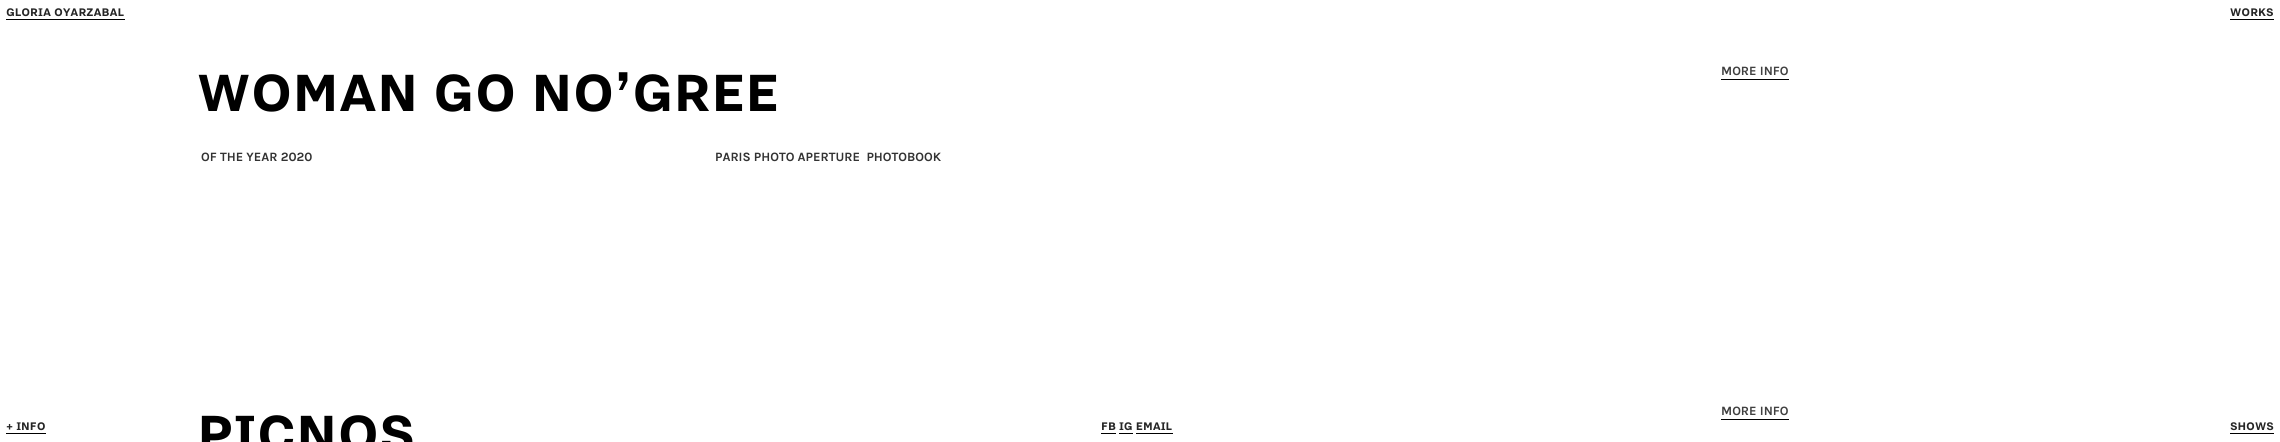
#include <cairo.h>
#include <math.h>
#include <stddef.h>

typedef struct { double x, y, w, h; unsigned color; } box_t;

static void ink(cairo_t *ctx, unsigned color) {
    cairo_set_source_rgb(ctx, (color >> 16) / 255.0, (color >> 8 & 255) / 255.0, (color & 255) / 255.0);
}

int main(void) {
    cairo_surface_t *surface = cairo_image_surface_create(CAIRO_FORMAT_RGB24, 2280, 442);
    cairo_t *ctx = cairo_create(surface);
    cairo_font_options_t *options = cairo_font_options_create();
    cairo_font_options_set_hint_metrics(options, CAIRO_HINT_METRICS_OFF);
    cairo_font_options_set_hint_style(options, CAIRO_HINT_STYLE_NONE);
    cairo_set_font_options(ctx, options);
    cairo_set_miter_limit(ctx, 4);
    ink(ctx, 0xFFFFFF);
    cairo_paint(ctx);
    cairo_select_font_face(ctx, "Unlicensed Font", CAIRO_FONT_SLANT_NORMAL, CAIRO_FONT_WEIGHT_BOLD);
    cairo_set_font_size(ctx, 14);
    ink(ctx, 0x262626);
    cairo_move_to(ctx, 6, 16);
    cairo_show_text(ctx, "GLORIA OYARZABAL");
    ink(ctx, 0x000000);
    cairo_rectangle(ctx, 6, 19, 119, 1);
    cairo_fill(ctx);
    ink(ctx, 0x262626);
    cairo_move_to(ctx, 2230, 16);
    cairo_show_text(ctx, "WORKS");
    ink(ctx, 0x000000);
    cairo_rectangle(ctx, 2230, 19, 44, 1);
    cairo_fill(ctx);
    cairo_select_font_face(ctx, "Karla", CAIRO_FONT_SLANT_NORMAL, CAIRO_FONT_WEIGHT_BOLD);
    cairo_set_font_size(ctx, 12.75);
    ink(ctx, 0x404040);
    cairo_move_to(ctx, 1721, 75);
    cairo_show_text(ctx, "MORE INFO");
    ink(ctx, 0x000000);
    cairo_rectangle(ctx, 1721, 79, 68, 1);
    cairo_fill(ctx);
    cairo_select_font_face(ctx, "Unlicensed Font", CAIRO_FONT_SLANT_NORMAL, CAIRO_FONT_WEIGHT_BOLD);
    cairo_set_font_size(ctx, 66.4);
    cairo_move_to(ctx, 197, 111);
    cairo_show_text(ctx, "WOMAN GO NO’GREE");
    cairo_select_font_face(ctx, "Karla", CAIRO_FONT_SLANT_NORMAL, CAIRO_FONT_WEIGHT_BOLD);
    cairo_set_font_size(ctx, 12.75);
    ink(ctx, 0x333333);
    cairo_move_to(ctx, 201, 161);
    cairo_show_text(ctx, "OF THE YEAR 2020");
    cairo_move_to(ctx, 715, 161);
    cairo_show_text(ctx, "PARIS PHOTO APERTURE  PHOTOBOOK");
    ink(ctx, 0x404040);
    cairo_move_to(ctx, 1721, 415);
    cairo_show_text(ctx, "MORE INFO");
    ink(ctx, 0x000000);
    cairo_rectangle(ctx, 1721, 419, 68, 1);
    cairo_fill(ctx);
    cairo_select_font_face(ctx, "Unlicensed Font", CAIRO_FONT_SLANT_NORMAL, CAIRO_FONT_WEIGHT_BOLD);
    cairo_set_font_size(ctx, 66.4);
    cairo_move_to(ctx, 197, 452);
    cairo_show_text(ctx, "PICNOS");
    cairo_set_font_size(ctx, 14);
    ink(ctx, 0x262626);
    cairo_move_to(ctx, 6, 430);
    cairo_show_text(ctx, "+ INFO");
    ink(ctx, 0x000000);
    cairo_rectangle(ctx, 6, 433, 40, 1);
    cairo_fill(ctx);
    ink(ctx, 0x262626);
    cairo_move_to(ctx, 1101, 430);
    cairo_show_text(ctx, "FB IG EMAIL");
    {
        static const box_t items[] = {
            {1101, 433, 15, 1, 0x000000},
            {1119, 433, 14, 1, 0x000000},
            {1136, 433, 37, 1, 0x000000},
        };
        for (size_t i = 0; i < sizeof items / sizeof *items; i++) {
            ink(ctx, items[i].color);
            cairo_rectangle(ctx, items[i].x, items[i].y, items[i].w, items[i].h);
            cairo_fill(ctx);
        }
    }
    ink(ctx, 0x262626);
    cairo_move_to(ctx, 2230, 430);
    cairo_show_text(ctx, "SHOWS");
    ink(ctx, 0x000000);
    cairo_rectangle(ctx, 2230, 433, 44, 1);
    cairo_fill(ctx);
    cairo_surface_write_to_png(surface, "image.png");
    cairo_font_options_destroy(options);
    cairo_destroy(ctx);
    cairo_surface_destroy(surface);
    return 0;
}
